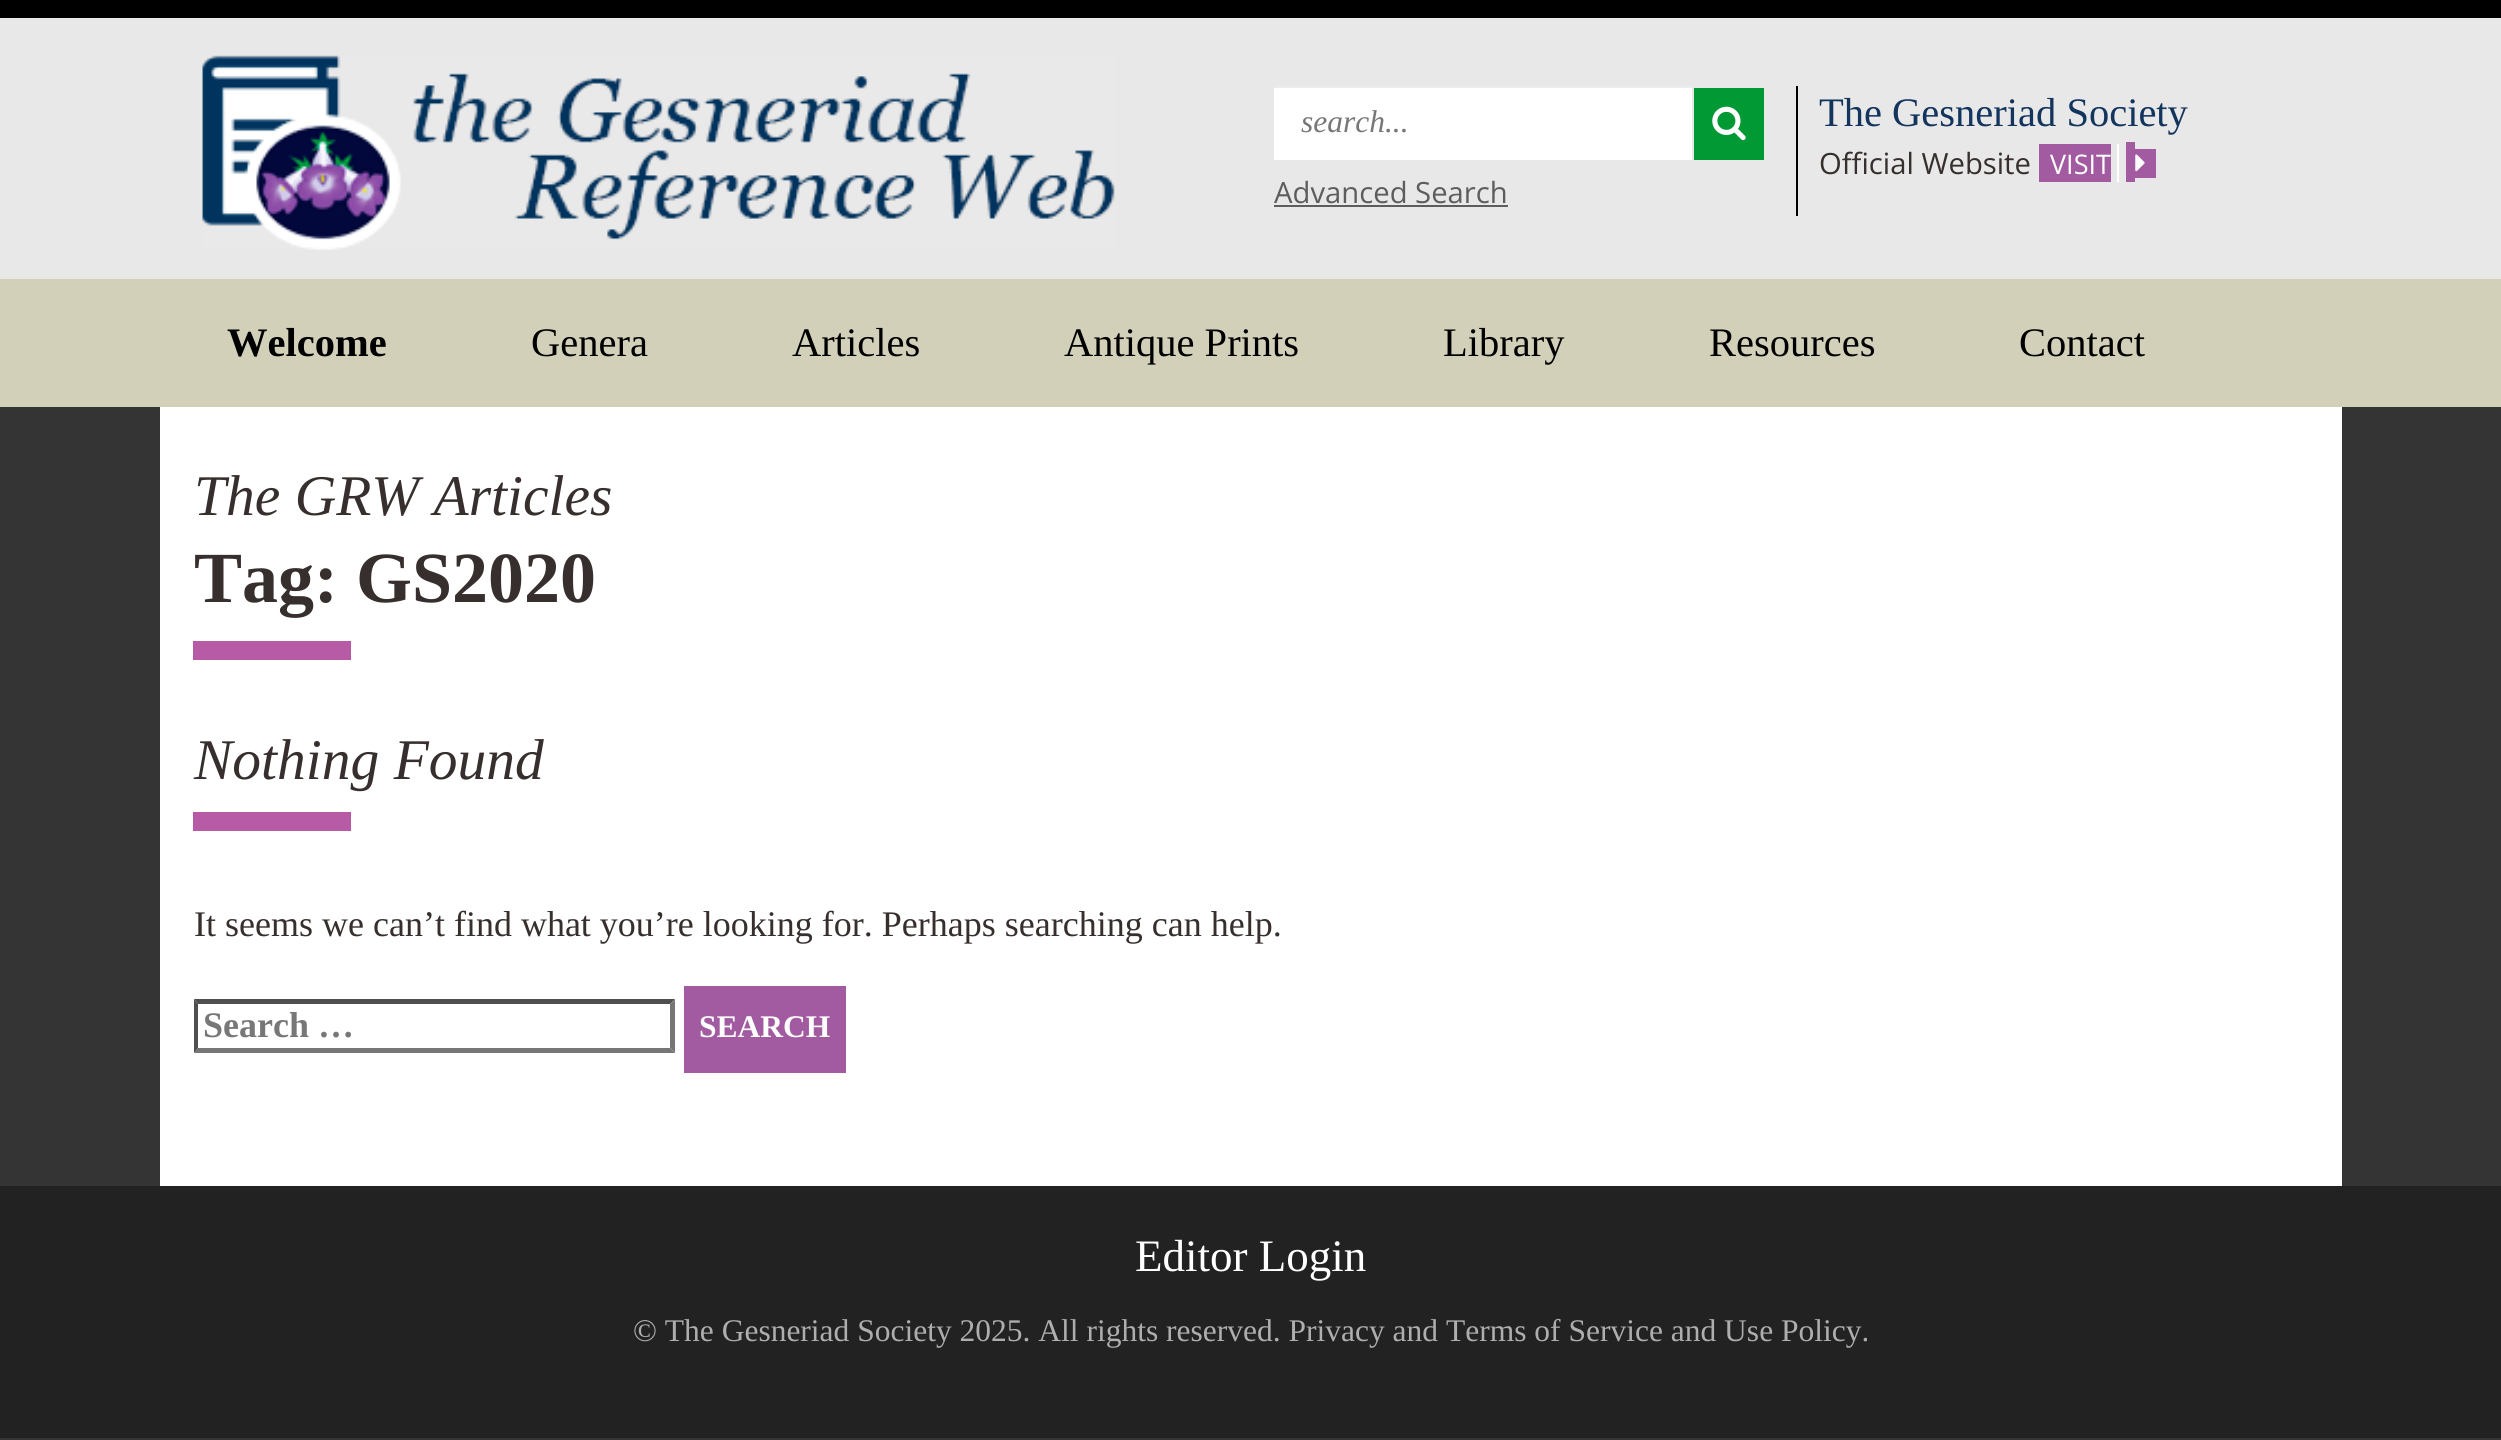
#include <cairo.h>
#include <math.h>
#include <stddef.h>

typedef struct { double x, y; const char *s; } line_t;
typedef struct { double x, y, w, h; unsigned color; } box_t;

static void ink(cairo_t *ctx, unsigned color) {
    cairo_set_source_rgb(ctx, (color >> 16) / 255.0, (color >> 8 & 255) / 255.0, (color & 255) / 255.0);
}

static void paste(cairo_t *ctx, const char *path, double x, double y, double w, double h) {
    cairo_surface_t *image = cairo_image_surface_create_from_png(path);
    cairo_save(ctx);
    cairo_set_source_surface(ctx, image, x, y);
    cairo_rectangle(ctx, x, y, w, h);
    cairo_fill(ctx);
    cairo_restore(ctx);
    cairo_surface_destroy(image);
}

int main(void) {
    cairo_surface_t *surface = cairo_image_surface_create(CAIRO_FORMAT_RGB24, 2501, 1440);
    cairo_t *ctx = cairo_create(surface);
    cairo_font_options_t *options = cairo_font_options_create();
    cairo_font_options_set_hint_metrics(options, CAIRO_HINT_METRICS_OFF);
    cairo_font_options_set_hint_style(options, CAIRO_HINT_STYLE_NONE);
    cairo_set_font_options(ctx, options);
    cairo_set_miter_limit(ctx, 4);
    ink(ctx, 0x343434);
    cairo_paint(ctx);
    ink(ctx, 0xE8E8E8);
    cairo_rectangle(ctx, 0, 18, 2501, 261);
    cairo_fill(ctx);
    ink(ctx, 0x000000);
    cairo_rectangle(ctx, 0, 0, 2501, 18);
    cairo_fill(ctx);
    paste(ctx, "media/1.png", 202, 55, 913, 195);
    {
        static const box_t items[] = {
            {1796, 86, 2, 130, 0x000000},
            {1274, 88, 418, 72, 0xFFFFFF},
            {1274, 86, 418, 2, 0xECECEC},
        };
        for (size_t i = 0; i < sizeof items / sizeof *items; i++) {
            ink(ctx, items[i].color);
            cairo_rectangle(ctx, items[i].x, items[i].y, items[i].w, items[i].h);
            cairo_fill(ctx);
        }
    }
    cairo_select_font_face(ctx, "Liberation Serif", CAIRO_FONT_SLANT_ITALIC, CAIRO_FONT_WEIGHT_NORMAL);
    cairo_set_font_size(ctx, 31.5);
    ink(ctx, 0x777777);
    cairo_move_to(ctx, 1301, 132);
    cairo_show_text(ctx, "search...");
    ink(ctx, 0x009933);
    cairo_rectangle(ctx, 1694, 88, 70, 72);
    cairo_fill(ctx);
    paste(ctx, "media/2.png", 1712, 106, 34, 35);
    cairo_select_font_face(ctx, "Open Sans", CAIRO_FONT_SLANT_NORMAL, CAIRO_FONT_WEIGHT_NORMAL);
    cairo_set_font_size(ctx, 29.25);
    ink(ctx, 0x5D5D5D);
    cairo_move_to(ctx, 1274, 203);
    cairo_show_text(ctx, "Advanced Search");
    cairo_rectangle(ctx, 1274, 205, 234, 2);
    cairo_fill(ctx);
    cairo_select_font_face(ctx, "Liberation Serif", CAIRO_FONT_SLANT_NORMAL, CAIRO_FONT_WEIGHT_NORMAL);
    cairo_set_font_size(ctx, 40.5);
    ink(ctx, 0x12345D);
    cairo_move_to(ctx, 1819, 126);
    cairo_show_text(ctx, "The Gesneriad Society");
    cairo_select_font_face(ctx, "Open Sans", CAIRO_FONT_SLANT_NORMAL, CAIRO_FONT_WEIGHT_NORMAL);
    cairo_set_font_size(ctx, 29.25);
    ink(ctx, 0x362F2D);
    cairo_move_to(ctx, 1819, 174);
    cairo_show_text(ctx, "Official Website");
    {
        static const box_t items[] = {
            {2039, 144, 72, 38, 0xA25BA1},
            {2126, 142, 9, 40, 0xA25BA1},
            {2135, 149, 21, 29, 0xA25BA1},
        };
        for (size_t i = 0; i < sizeof items / sizeof *items; i++) {
            ink(ctx, items[i].color);
            cairo_rectangle(ctx, items[i].x, items[i].y, items[i].w, items[i].h);
            cairo_fill(ctx);
        }
    }
    cairo_set_font_size(ctx, 27);
    ink(ctx, 0xFFFFFF);
    cairo_move_to(ctx, 2050, 174);
    cairo_show_text(ctx, "VISIT");
    cairo_rectangle(ctx, 2117, 144, 2, 38);
    cairo_fill(ctx);
    paste(ctx, "media/3.png", 2135, 154, 10, 18);
    ink(ctx, 0xD2D0B9);
    cairo_rectangle(ctx, 0, 279, 2501, 128);
    cairo_fill(ctx);
    cairo_select_font_face(ctx, "Liberation Serif", CAIRO_FONT_SLANT_NORMAL, CAIRO_FONT_WEIGHT_BOLD);
    cairo_set_font_size(ctx, 40.5);
    ink(ctx, 0x000000);
    cairo_move_to(ctx, 227, 356);
    cairo_show_text(ctx, "Welcome");
    cairo_select_font_face(ctx, "Liberation Serif", CAIRO_FONT_SLANT_NORMAL, CAIRO_FONT_WEIGHT_NORMAL);
    {
        static const line_t items[] = {
            {531, 356, "Genera"},
            {792, 356, "Articles"},
            {1064, 356, "Antique Prints"},
            {1443, 356, "Library"},
            {1709, 356, "Resources"},
            {2019, 356, "Contact"},
        };
        for (size_t i = 0; i < sizeof items / sizeof *items; i++) {
            cairo_move_to(ctx, items[i].x, items[i].y);
            cairo_show_text(ctx, items[i].s);
        }
    }
    ink(ctx, 0xFFFFFF);
    cairo_rectangle(ctx, 160, 407, 2182, 779);
    cairo_fill(ctx);
    ink(ctx, 0xB75BA6);
    cairo_rectangle(ctx, 193, 641, 158, 19);
    cairo_fill(ctx);
    cairo_select_font_face(ctx, "Liberation Serif", CAIRO_FONT_SLANT_ITALIC, CAIRO_FONT_WEIGHT_NORMAL);
    cairo_set_font_size(ctx, 57.5);
    ink(ctx, 0x362F2D);
    cairo_move_to(ctx, 194, 515);
    cairo_show_text(ctx, "The GRW Articles");
    cairo_select_font_face(ctx, "Liberation Serif", CAIRO_FONT_SLANT_NORMAL, CAIRO_FONT_WEIGHT_BOLD);
    cairo_set_font_size(ctx, 72);
    cairo_move_to(ctx, 194, 602);
    cairo_show_text(ctx, "Tag: GS2020");
    ink(ctx, 0xB75BA6);
    cairo_rectangle(ctx, 193, 812, 158, 19);
    cairo_fill(ctx);
    cairo_select_font_face(ctx, "Liberation Serif", CAIRO_FONT_SLANT_ITALIC, CAIRO_FONT_WEIGHT_NORMAL);
    cairo_set_font_size(ctx, 57.5);
    ink(ctx, 0x362F2D);
    cairo_move_to(ctx, 194, 779);
    cairo_show_text(ctx, "Nothing Found");
    cairo_select_font_face(ctx, "Liberation Serif", CAIRO_FONT_SLANT_NORMAL, CAIRO_FONT_WEIGHT_NORMAL);
    cairo_set_font_size(ctx, 36);
    cairo_move_to(ctx, 194, 936);
    cairo_show_text(ctx, "It seems we can’t find what you’re looking for. Perhaps searching can help.");
    ink(ctx, 0x4F4F4F);
    cairo_new_path(ctx);
    cairo_move_to(ctx, 194, 999);
    cairo_line_to(ctx, 675, 999);
    cairo_line_to(ctx, 670, 1004);
    cairo_line_to(ctx, 198, 1004);
    cairo_close_path(ctx);
    cairo_fill(ctx);
    ink(ctx, 0x767676);
    cairo_new_path(ctx);
    cairo_move_to(ctx, 675, 999);
    cairo_line_to(ctx, 675, 1053);
    cairo_line_to(ctx, 670, 1048);
    cairo_line_to(ctx, 670, 1004);
    cairo_close_path(ctx);
    cairo_fill(ctx);
    cairo_new_path(ctx);
    cairo_move_to(ctx, 675, 1053);
    cairo_line_to(ctx, 194, 1053);
    cairo_line_to(ctx, 198, 1048);
    cairo_line_to(ctx, 670, 1048);
    cairo_close_path(ctx);
    cairo_fill(ctx);
    ink(ctx, 0x4F4F4F);
    cairo_new_path(ctx);
    cairo_move_to(ctx, 194, 1053);
    cairo_line_to(ctx, 194, 999);
    cairo_line_to(ctx, 198, 1004);
    cairo_line_to(ctx, 198, 1048);
    cairo_close_path(ctx);
    cairo_fill(ctx);
    cairo_select_font_face(ctx, "Liberation Serif", CAIRO_FONT_SLANT_NORMAL, CAIRO_FONT_WEIGHT_BOLD);
    ink(ctx, 0x777777);
    cairo_move_to(ctx, 203, 1037);
    cairo_show_text(ctx, "Search …");
    ink(ctx, 0xA25BA1);
    cairo_rectangle(ctx, 684, 986, 162, 87);
    cairo_fill(ctx);
    cairo_set_font_size(ctx, 31.5);
    ink(ctx, 0xFFFFFF);
    cairo_move_to(ctx, 699, 1037);
    cairo_show_text(ctx, "SEARCH");
    ink(ctx, 0x222222);
    cairo_rectangle(ctx, 0, 1186, 2501, 252);
    cairo_fill(ctx);
    cairo_select_font_face(ctx, "Liberation Serif", CAIRO_FONT_SLANT_NORMAL, CAIRO_FONT_WEIGHT_NORMAL);
    cairo_set_font_size(ctx, 45);
    ink(ctx, 0xFFFFFF);
    cairo_move_to(ctx, 1135, 1271);
    cairo_show_text(ctx, "Editor Login");
    cairo_set_font_size(ctx, 31.5);
    ink(ctx, 0xAEAEAE);
    cairo_move_to(ctx, 633, 1341);
    cairo_show_text(ctx, "© The Gesneriad Society 2025. All rights reserved. Privacy and Terms of Service and Use Policy.");
    cairo_surface_write_to_png(surface, "image.png");
    cairo_font_options_destroy(options);
    cairo_destroy(ctx);
    cairo_surface_destroy(surface);
    return 0;
}
